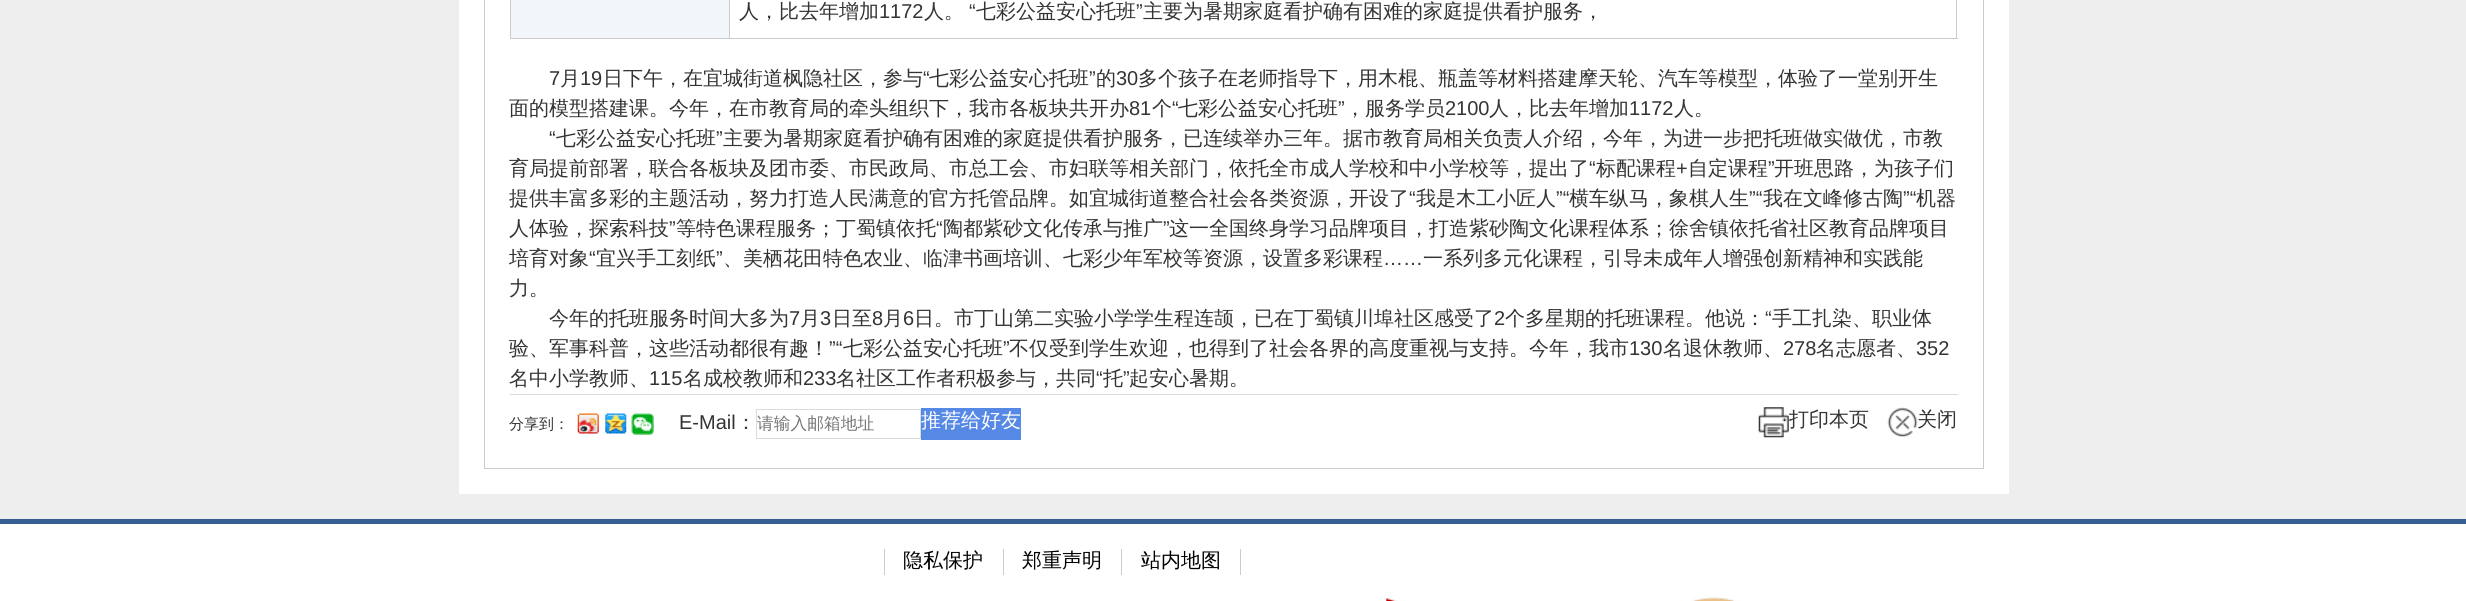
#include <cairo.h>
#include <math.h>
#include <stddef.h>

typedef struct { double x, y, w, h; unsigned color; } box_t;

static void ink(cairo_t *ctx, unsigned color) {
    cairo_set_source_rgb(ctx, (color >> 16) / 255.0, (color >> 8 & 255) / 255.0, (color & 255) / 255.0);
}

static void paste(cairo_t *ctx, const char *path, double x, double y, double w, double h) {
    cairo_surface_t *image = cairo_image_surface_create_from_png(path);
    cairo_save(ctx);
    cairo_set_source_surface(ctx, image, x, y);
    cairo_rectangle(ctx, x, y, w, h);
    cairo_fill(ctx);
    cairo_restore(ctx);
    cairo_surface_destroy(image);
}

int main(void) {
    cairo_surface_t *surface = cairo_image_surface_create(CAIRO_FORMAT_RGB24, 2466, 601);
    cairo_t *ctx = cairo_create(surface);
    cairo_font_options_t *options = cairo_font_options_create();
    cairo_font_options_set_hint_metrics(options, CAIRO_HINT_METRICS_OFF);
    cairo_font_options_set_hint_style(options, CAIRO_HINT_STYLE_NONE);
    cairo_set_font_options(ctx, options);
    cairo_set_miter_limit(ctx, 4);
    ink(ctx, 0xEEEEEE);
    cairo_paint(ctx);
    ink(ctx, 0xFFFFFF);
    cairo_rectangle(ctx, 459, 0, 1550, 494);
    cairo_fill(ctx);
    cairo_rectangle(ctx, 484.5, -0.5, 1499, 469);
    ink(ctx, 0xCCCCCC);
    cairo_set_line_width(ctx, 1);
    cairo_stroke(ctx);
    {
        static const box_t items[] = {
            {511, 0, 218, 38, 0xF2F6FA},
            {1956, 0, 1, 39, 0xCCCCCC},
            {729, 38, 1229, 1, 0xCCCCCC},
            {729, 0, 1, 39, 0xCCCCCC},
            {510, 38, 220, 1, 0xCCCCCC},
            {510, 0, 1, 39, 0xCCCCCC},
        };
        for (size_t i = 0; i < sizeof items / sizeof *items; i++) {
            ink(ctx, items[i].color);
            cairo_rectangle(ctx, items[i].x, items[i].y, items[i].w, items[i].h);
            cairo_fill(ctx);
        }
    }
    cairo_select_font_face(ctx, "WenQuanYi Zen Hei Medium", CAIRO_FONT_SLANT_NORMAL, CAIRO_FONT_WEIGHT_NORMAL);
    cairo_set_font_size(ctx, 20);
    ink(ctx, 0x333333);
    cairo_move_to(ctx, 739, 18);
    cairo_show_text(ctx, "人，比去年增加");
    cairo_select_font_face(ctx, "Liberation Sans", CAIRO_FONT_SLANT_NORMAL, CAIRO_FONT_WEIGHT_NORMAL);
    cairo_move_to(ctx, 879, 18);
    cairo_show_text(ctx, "1172");
    cairo_select_font_face(ctx, "WenQuanYi Zen Hei Medium", CAIRO_FONT_SLANT_NORMAL, CAIRO_FONT_WEIGHT_NORMAL);
    cairo_move_to(ctx, 924, 18);
    cairo_show_text(ctx, "人。");
    cairo_select_font_face(ctx, "Liberation Sans", CAIRO_FONT_SLANT_NORMAL, CAIRO_FONT_WEIGHT_NORMAL);
    cairo_move_to(ctx, 969, 18);
    cairo_show_text(ctx, "“");
    cairo_select_font_face(ctx, "WenQuanYi Zen Hei Medium", CAIRO_FONT_SLANT_NORMAL, CAIRO_FONT_WEIGHT_NORMAL);
    cairo_move_to(ctx, 976, 18);
    cairo_show_text(ctx, "七彩公益安心托班");
    cairo_select_font_face(ctx, "Liberation Sans", CAIRO_FONT_SLANT_NORMAL, CAIRO_FONT_WEIGHT_NORMAL);
    cairo_move_to(ctx, 1136, 18);
    cairo_show_text(ctx, "”");
    cairo_select_font_face(ctx, "WenQuanYi Zen Hei Medium", CAIRO_FONT_SLANT_NORMAL, CAIRO_FONT_WEIGHT_NORMAL);
    cairo_move_to(ctx, 1143, 18);
    cairo_show_text(ctx, "主要为暑期家庭看护确有困难的家庭提供看护服务，");
    cairo_select_font_face(ctx, "Liberation Sans", CAIRO_FONT_SLANT_NORMAL, CAIRO_FONT_WEIGHT_NORMAL);
    cairo_move_to(ctx, 549, 85);
    cairo_show_text(ctx, "7");
    cairo_select_font_face(ctx, "WenQuanYi Zen Hei Medium", CAIRO_FONT_SLANT_NORMAL, CAIRO_FONT_WEIGHT_NORMAL);
    cairo_move_to(ctx, 560, 85);
    cairo_show_text(ctx, "月");
    cairo_select_font_face(ctx, "Liberation Sans", CAIRO_FONT_SLANT_NORMAL, CAIRO_FONT_WEIGHT_NORMAL);
    cairo_move_to(ctx, 580, 85);
    cairo_show_text(ctx, "19");
    cairo_select_font_face(ctx, "WenQuanYi Zen Hei Medium", CAIRO_FONT_SLANT_NORMAL, CAIRO_FONT_WEIGHT_NORMAL);
    cairo_move_to(ctx, 603, 85);
    cairo_show_text(ctx, "日下午，在宜城街道枫隐社区，参与");
    cairo_select_font_face(ctx, "Liberation Sans", CAIRO_FONT_SLANT_NORMAL, CAIRO_FONT_WEIGHT_NORMAL);
    cairo_move_to(ctx, 923, 85);
    cairo_show_text(ctx, "“");
    cairo_select_font_face(ctx, "WenQuanYi Zen Hei Medium", CAIRO_FONT_SLANT_NORMAL, CAIRO_FONT_WEIGHT_NORMAL);
    cairo_move_to(ctx, 929, 85);
    cairo_show_text(ctx, "七彩公益安心托班");
    cairo_select_font_face(ctx, "Liberation Sans", CAIRO_FONT_SLANT_NORMAL, CAIRO_FONT_WEIGHT_NORMAL);
    cairo_move_to(ctx, 1089, 85);
    cairo_show_text(ctx, "”");
    cairo_select_font_face(ctx, "WenQuanYi Zen Hei Medium", CAIRO_FONT_SLANT_NORMAL, CAIRO_FONT_WEIGHT_NORMAL);
    cairo_move_to(ctx, 1096, 85);
    cairo_show_text(ctx, "的");
    cairo_select_font_face(ctx, "Liberation Sans", CAIRO_FONT_SLANT_NORMAL, CAIRO_FONT_WEIGHT_NORMAL);
    cairo_move_to(ctx, 1116, 85);
    cairo_show_text(ctx, "30");
    cairo_select_font_face(ctx, "WenQuanYi Zen Hei Medium", CAIRO_FONT_SLANT_NORMAL, CAIRO_FONT_WEIGHT_NORMAL);
    cairo_move_to(ctx, 1138, 85);
    cairo_show_text(ctx, "多个孩子在老师指导下，用木棍、瓶盖等材料搭建摩天轮、汽车等模型，体验了一堂别开生");
    cairo_move_to(ctx, 509, 115);
    cairo_show_text(ctx, "面的模型搭建课。今年，在市教育局的牵头组织下，我市各板块共开办");
    cairo_select_font_face(ctx, "Liberation Sans", CAIRO_FONT_SLANT_NORMAL, CAIRO_FONT_WEIGHT_NORMAL);
    cairo_move_to(ctx, 1129, 115);
    cairo_show_text(ctx, "81");
    cairo_select_font_face(ctx, "WenQuanYi Zen Hei Medium", CAIRO_FONT_SLANT_NORMAL, CAIRO_FONT_WEIGHT_NORMAL);
    cairo_move_to(ctx, 1152, 115);
    cairo_show_text(ctx, "个");
    cairo_select_font_face(ctx, "Liberation Sans", CAIRO_FONT_SLANT_NORMAL, CAIRO_FONT_WEIGHT_NORMAL);
    cairo_move_to(ctx, 1172, 115);
    cairo_show_text(ctx, "“");
    cairo_select_font_face(ctx, "WenQuanYi Zen Hei Medium", CAIRO_FONT_SLANT_NORMAL, CAIRO_FONT_WEIGHT_NORMAL);
    cairo_move_to(ctx, 1178, 115);
    cairo_show_text(ctx, "七彩公益安心托班");
    cairo_select_font_face(ctx, "Liberation Sans", CAIRO_FONT_SLANT_NORMAL, CAIRO_FONT_WEIGHT_NORMAL);
    cairo_move_to(ctx, 1338, 115);
    cairo_show_text(ctx, "”");
    cairo_select_font_face(ctx, "WenQuanYi Zen Hei Medium", CAIRO_FONT_SLANT_NORMAL, CAIRO_FONT_WEIGHT_NORMAL);
    cairo_move_to(ctx, 1345, 115);
    cairo_show_text(ctx, "，服务学员");
    cairo_select_font_face(ctx, "Liberation Sans", CAIRO_FONT_SLANT_NORMAL, CAIRO_FONT_WEIGHT_NORMAL);
    cairo_move_to(ctx, 1445, 115);
    cairo_show_text(ctx, "2100");
    cairo_select_font_face(ctx, "WenQuanYi Zen Hei Medium", CAIRO_FONT_SLANT_NORMAL, CAIRO_FONT_WEIGHT_NORMAL);
    cairo_move_to(ctx, 1489, 115);
    cairo_show_text(ctx, "人，比去年增加");
    cairo_select_font_face(ctx, "Liberation Sans", CAIRO_FONT_SLANT_NORMAL, CAIRO_FONT_WEIGHT_NORMAL);
    cairo_move_to(ctx, 1629, 115);
    cairo_show_text(ctx, "1172");
    cairo_select_font_face(ctx, "WenQuanYi Zen Hei Medium", CAIRO_FONT_SLANT_NORMAL, CAIRO_FONT_WEIGHT_NORMAL);
    cairo_move_to(ctx, 1674, 115);
    cairo_show_text(ctx, "人。");
    cairo_select_font_face(ctx, "Liberation Sans", CAIRO_FONT_SLANT_NORMAL, CAIRO_FONT_WEIGHT_NORMAL);
    cairo_move_to(ctx, 549, 145);
    cairo_show_text(ctx, "“");
    cairo_select_font_face(ctx, "WenQuanYi Zen Hei Medium", CAIRO_FONT_SLANT_NORMAL, CAIRO_FONT_WEIGHT_NORMAL);
    cairo_move_to(ctx, 556, 145);
    cairo_show_text(ctx, "七彩公益安心托班");
    cairo_select_font_face(ctx, "Liberation Sans", CAIRO_FONT_SLANT_NORMAL, CAIRO_FONT_WEIGHT_NORMAL);
    cairo_move_to(ctx, 716, 145);
    cairo_show_text(ctx, "”");
    cairo_select_font_face(ctx, "WenQuanYi Zen Hei Medium", CAIRO_FONT_SLANT_NORMAL, CAIRO_FONT_WEIGHT_NORMAL);
    cairo_move_to(ctx, 723, 145);
    cairo_show_text(ctx, "主要为暑期家庭看护确有困难的家庭提供看护服务，已连续举办三年。据市教育局相关负责人介绍，今年，为进一步把托班做实做优，市教");
    cairo_move_to(ctx, 509, 175);
    cairo_show_text(ctx, "育局提前部署，联合各板块及团市委、市民政局、市总工会、市妇联等相关部门，依托全市成人学校和中小学校等，提出了");
    cairo_select_font_face(ctx, "Liberation Sans", CAIRO_FONT_SLANT_NORMAL, CAIRO_FONT_WEIGHT_NORMAL);
    cairo_move_to(ctx, 1589, 175);
    cairo_show_text(ctx, "“");
    cairo_select_font_face(ctx, "WenQuanYi Zen Hei Medium", CAIRO_FONT_SLANT_NORMAL, CAIRO_FONT_WEIGHT_NORMAL);
    cairo_move_to(ctx, 1596, 175);
    cairo_show_text(ctx, "标配课程");
    cairo_select_font_face(ctx, "Liberation Sans", CAIRO_FONT_SLANT_NORMAL, CAIRO_FONT_WEIGHT_NORMAL);
    cairo_move_to(ctx, 1676, 175);
    cairo_show_text(ctx, "+");
    cairo_select_font_face(ctx, "WenQuanYi Zen Hei Medium", CAIRO_FONT_SLANT_NORMAL, CAIRO_FONT_WEIGHT_NORMAL);
    cairo_move_to(ctx, 1688, 175);
    cairo_show_text(ctx, "自定课程");
    cairo_select_font_face(ctx, "Liberation Sans", CAIRO_FONT_SLANT_NORMAL, CAIRO_FONT_WEIGHT_NORMAL);
    cairo_move_to(ctx, 1768, 175);
    cairo_show_text(ctx, "”");
    cairo_select_font_face(ctx, "WenQuanYi Zen Hei Medium", CAIRO_FONT_SLANT_NORMAL, CAIRO_FONT_WEIGHT_NORMAL);
    cairo_move_to(ctx, 1774, 175);
    cairo_show_text(ctx, "开班思路，为孩子们");
    cairo_move_to(ctx, 509, 205);
    cairo_show_text(ctx, "提供丰富多彩的主题活动，努力打造人民满意的官方托管品牌。如宜城街道整合社会各类资源，开设了");
    cairo_select_font_face(ctx, "Liberation Sans", CAIRO_FONT_SLANT_NORMAL, CAIRO_FONT_WEIGHT_NORMAL);
    cairo_move_to(ctx, 1409, 205);
    cairo_show_text(ctx, "“");
    cairo_select_font_face(ctx, "WenQuanYi Zen Hei Medium", CAIRO_FONT_SLANT_NORMAL, CAIRO_FONT_WEIGHT_NORMAL);
    cairo_move_to(ctx, 1416, 205);
    cairo_show_text(ctx, "我是木工小匠人");
    cairo_select_font_face(ctx, "Liberation Sans", CAIRO_FONT_SLANT_NORMAL, CAIRO_FONT_WEIGHT_NORMAL);
    cairo_move_to(ctx, 1556, 205);
    cairo_show_text(ctx, "”“");
    cairo_select_font_face(ctx, "WenQuanYi Zen Hei Medium", CAIRO_FONT_SLANT_NORMAL, CAIRO_FONT_WEIGHT_NORMAL);
    cairo_move_to(ctx, 1569, 205);
    cairo_show_text(ctx, "横车纵马，象棋人生");
    cairo_select_font_face(ctx, "Liberation Sans", CAIRO_FONT_SLANT_NORMAL, CAIRO_FONT_WEIGHT_NORMAL);
    cairo_move_to(ctx, 1749, 205);
    cairo_show_text(ctx, "”“");
    cairo_select_font_face(ctx, "WenQuanYi Zen Hei Medium", CAIRO_FONT_SLANT_NORMAL, CAIRO_FONT_WEIGHT_NORMAL);
    cairo_move_to(ctx, 1763, 205);
    cairo_show_text(ctx, "我在文峰修古陶");
    cairo_select_font_face(ctx, "Liberation Sans", CAIRO_FONT_SLANT_NORMAL, CAIRO_FONT_WEIGHT_NORMAL);
    cairo_move_to(ctx, 1903, 205);
    cairo_show_text(ctx, "”“");
    cairo_select_font_face(ctx, "WenQuanYi Zen Hei Medium", CAIRO_FONT_SLANT_NORMAL, CAIRO_FONT_WEIGHT_NORMAL);
    cairo_move_to(ctx, 1916, 205);
    cairo_show_text(ctx, "机器");
    cairo_move_to(ctx, 509, 235);
    cairo_show_text(ctx, "人体验，探索科技");
    cairo_select_font_face(ctx, "Liberation Sans", CAIRO_FONT_SLANT_NORMAL, CAIRO_FONT_WEIGHT_NORMAL);
    cairo_move_to(ctx, 669, 235);
    cairo_show_text(ctx, "”");
    cairo_select_font_face(ctx, "WenQuanYi Zen Hei Medium", CAIRO_FONT_SLANT_NORMAL, CAIRO_FONT_WEIGHT_NORMAL);
    cairo_move_to(ctx, 676, 235);
    cairo_show_text(ctx, "等特色课程服务；丁蜀镇依托");
    cairo_select_font_face(ctx, "Liberation Sans", CAIRO_FONT_SLANT_NORMAL, CAIRO_FONT_WEIGHT_NORMAL);
    cairo_move_to(ctx, 936, 235);
    cairo_show_text(ctx, "“");
    cairo_select_font_face(ctx, "WenQuanYi Zen Hei Medium", CAIRO_FONT_SLANT_NORMAL, CAIRO_FONT_WEIGHT_NORMAL);
    cairo_move_to(ctx, 943, 235);
    cairo_show_text(ctx, "陶都紫砂文化传承与推广");
    cairo_select_font_face(ctx, "Liberation Sans", CAIRO_FONT_SLANT_NORMAL, CAIRO_FONT_WEIGHT_NORMAL);
    cairo_move_to(ctx, 1163, 235);
    cairo_show_text(ctx, "”");
    cairo_select_font_face(ctx, "WenQuanYi Zen Hei Medium", CAIRO_FONT_SLANT_NORMAL, CAIRO_FONT_WEIGHT_NORMAL);
    cairo_move_to(ctx, 1169, 235);
    cairo_show_text(ctx, "这一全国终身学习品牌项目，打造紫砂陶文化课程体系；徐舍镇依托省社区教育品牌项目");
    cairo_move_to(ctx, 509, 265);
    cairo_show_text(ctx, "培育对象");
    cairo_select_font_face(ctx, "Liberation Sans", CAIRO_FONT_SLANT_NORMAL, CAIRO_FONT_WEIGHT_NORMAL);
    cairo_move_to(ctx, 589, 265);
    cairo_show_text(ctx, "“");
    cairo_select_font_face(ctx, "WenQuanYi Zen Hei Medium", CAIRO_FONT_SLANT_NORMAL, CAIRO_FONT_WEIGHT_NORMAL);
    cairo_move_to(ctx, 596, 265);
    cairo_show_text(ctx, "宜兴手工刻纸");
    cairo_select_font_face(ctx, "Liberation Sans", CAIRO_FONT_SLANT_NORMAL, CAIRO_FONT_WEIGHT_NORMAL);
    cairo_move_to(ctx, 716, 265);
    cairo_show_text(ctx, "”");
    cairo_select_font_face(ctx, "WenQuanYi Zen Hei Medium", CAIRO_FONT_SLANT_NORMAL, CAIRO_FONT_WEIGHT_NORMAL);
    cairo_move_to(ctx, 723, 265);
    cairo_show_text(ctx, "、美栖花田特色农业、临津书画培训、七彩少年军校等资源，设置多彩课程");
    cairo_move_to(ctx, 1423, 265);
    cairo_show_text(ctx, "一系列多元化课程，引导未成年人增强创新精神和实践能");
    cairo_select_font_face(ctx, "Liberation Sans", CAIRO_FONT_SLANT_NORMAL, CAIRO_FONT_WEIGHT_NORMAL);
    cairo_move_to(ctx, 1383, 265);
    cairo_show_text(ctx, "……");
    cairo_select_font_face(ctx, "WenQuanYi Zen Hei Medium", CAIRO_FONT_SLANT_NORMAL, CAIRO_FONT_WEIGHT_NORMAL);
    cairo_move_to(ctx, 509, 295);
    cairo_show_text(ctx, "力。");
    cairo_move_to(ctx, 549, 325);
    cairo_show_text(ctx, "今年的托班服务时间大多为");
    cairo_select_font_face(ctx, "Liberation Sans", CAIRO_FONT_SLANT_NORMAL, CAIRO_FONT_WEIGHT_NORMAL);
    cairo_move_to(ctx, 789, 325);
    cairo_show_text(ctx, "7");
    cairo_select_font_face(ctx, "WenQuanYi Zen Hei Medium", CAIRO_FONT_SLANT_NORMAL, CAIRO_FONT_WEIGHT_NORMAL);
    cairo_move_to(ctx, 800, 325);
    cairo_show_text(ctx, "月");
    cairo_select_font_face(ctx, "Liberation Sans", CAIRO_FONT_SLANT_NORMAL, CAIRO_FONT_WEIGHT_NORMAL);
    cairo_move_to(ctx, 820, 325);
    cairo_show_text(ctx, "3");
    cairo_select_font_face(ctx, "WenQuanYi Zen Hei Medium", CAIRO_FONT_SLANT_NORMAL, CAIRO_FONT_WEIGHT_NORMAL);
    cairo_move_to(ctx, 832, 325);
    cairo_show_text(ctx, "日至");
    cairo_select_font_face(ctx, "Liberation Sans", CAIRO_FONT_SLANT_NORMAL, CAIRO_FONT_WEIGHT_NORMAL);
    cairo_move_to(ctx, 872, 325);
    cairo_show_text(ctx, "8");
    cairo_select_font_face(ctx, "WenQuanYi Zen Hei Medium", CAIRO_FONT_SLANT_NORMAL, CAIRO_FONT_WEIGHT_NORMAL);
    cairo_move_to(ctx, 883, 325);
    cairo_show_text(ctx, "月");
    cairo_select_font_face(ctx, "Liberation Sans", CAIRO_FONT_SLANT_NORMAL, CAIRO_FONT_WEIGHT_NORMAL);
    cairo_move_to(ctx, 903, 325);
    cairo_show_text(ctx, "6");
    cairo_select_font_face(ctx, "WenQuanYi Zen Hei Medium", CAIRO_FONT_SLANT_NORMAL, CAIRO_FONT_WEIGHT_NORMAL);
    cairo_move_to(ctx, 914, 325);
    cairo_show_text(ctx, "日。市丁山第二实验小学学生程连颉，已在丁蜀镇川埠社区感受了");
    cairo_select_font_face(ctx, "Liberation Sans", CAIRO_FONT_SLANT_NORMAL, CAIRO_FONT_WEIGHT_NORMAL);
    cairo_move_to(ctx, 1494, 325);
    cairo_show_text(ctx, "2");
    cairo_select_font_face(ctx, "WenQuanYi Zen Hei Medium", CAIRO_FONT_SLANT_NORMAL, CAIRO_FONT_WEIGHT_NORMAL);
    cairo_move_to(ctx, 1505, 325);
    cairo_show_text(ctx, "个多星期的托班课程。他说：");
    cairo_select_font_face(ctx, "Liberation Sans", CAIRO_FONT_SLANT_NORMAL, CAIRO_FONT_WEIGHT_NORMAL);
    cairo_move_to(ctx, 1765, 325);
    cairo_show_text(ctx, "“");
    cairo_select_font_face(ctx, "WenQuanYi Zen Hei Medium", CAIRO_FONT_SLANT_NORMAL, CAIRO_FONT_WEIGHT_NORMAL);
    cairo_move_to(ctx, 1772, 325);
    cairo_show_text(ctx, "手工扎染、职业体");
    cairo_move_to(ctx, 509, 355);
    cairo_show_text(ctx, "验、军事科普，这些活动都很有趣！");
    cairo_select_font_face(ctx, "Liberation Sans", CAIRO_FONT_SLANT_NORMAL, CAIRO_FONT_WEIGHT_NORMAL);
    cairo_move_to(ctx, 829, 355);
    cairo_show_text(ctx, "”“");
    cairo_select_font_face(ctx, "WenQuanYi Zen Hei Medium", CAIRO_FONT_SLANT_NORMAL, CAIRO_FONT_WEIGHT_NORMAL);
    cairo_move_to(ctx, 843, 355);
    cairo_show_text(ctx, "七彩公益安心托班");
    cairo_select_font_face(ctx, "Liberation Sans", CAIRO_FONT_SLANT_NORMAL, CAIRO_FONT_WEIGHT_NORMAL);
    cairo_move_to(ctx, 1003, 355);
    cairo_show_text(ctx, "”");
    cairo_select_font_face(ctx, "WenQuanYi Zen Hei Medium", CAIRO_FONT_SLANT_NORMAL, CAIRO_FONT_WEIGHT_NORMAL);
    cairo_move_to(ctx, 1009, 355);
    cairo_show_text(ctx, "不仅受到学生欢迎，也得到了社会各界的高度重视与支持。今年，我市");
    cairo_select_font_face(ctx, "Liberation Sans", CAIRO_FONT_SLANT_NORMAL, CAIRO_FONT_WEIGHT_NORMAL);
    cairo_move_to(ctx, 1629, 355);
    cairo_show_text(ctx, "130");
    cairo_select_font_face(ctx, "WenQuanYi Zen Hei Medium", CAIRO_FONT_SLANT_NORMAL, CAIRO_FONT_WEIGHT_NORMAL);
    cairo_move_to(ctx, 1663, 355);
    cairo_show_text(ctx, "名退休教师、");
    cairo_select_font_face(ctx, "Liberation Sans", CAIRO_FONT_SLANT_NORMAL, CAIRO_FONT_WEIGHT_NORMAL);
    cairo_move_to(ctx, 1783, 355);
    cairo_show_text(ctx, "278");
    cairo_select_font_face(ctx, "WenQuanYi Zen Hei Medium", CAIRO_FONT_SLANT_NORMAL, CAIRO_FONT_WEIGHT_NORMAL);
    cairo_move_to(ctx, 1816, 355);
    cairo_show_text(ctx, "名志愿者、");
    cairo_select_font_face(ctx, "Liberation Sans", CAIRO_FONT_SLANT_NORMAL, CAIRO_FONT_WEIGHT_NORMAL);
    cairo_move_to(ctx, 1916, 355);
    cairo_show_text(ctx, "352");
    cairo_select_font_face(ctx, "WenQuanYi Zen Hei Medium", CAIRO_FONT_SLANT_NORMAL, CAIRO_FONT_WEIGHT_NORMAL);
    cairo_move_to(ctx, 509, 385);
    cairo_show_text(ctx, "名中小学教师、");
    cairo_select_font_face(ctx, "Liberation Sans", CAIRO_FONT_SLANT_NORMAL, CAIRO_FONT_WEIGHT_NORMAL);
    cairo_move_to(ctx, 649, 385);
    cairo_show_text(ctx, "115");
    cairo_select_font_face(ctx, "WenQuanYi Zen Hei Medium", CAIRO_FONT_SLANT_NORMAL, CAIRO_FONT_WEIGHT_NORMAL);
    cairo_move_to(ctx, 683, 385);
    cairo_show_text(ctx, "名成校教师和");
    cairo_select_font_face(ctx, "Liberation Sans", CAIRO_FONT_SLANT_NORMAL, CAIRO_FONT_WEIGHT_NORMAL);
    cairo_move_to(ctx, 803, 385);
    cairo_show_text(ctx, "233");
    cairo_select_font_face(ctx, "WenQuanYi Zen Hei Medium", CAIRO_FONT_SLANT_NORMAL, CAIRO_FONT_WEIGHT_NORMAL);
    cairo_move_to(ctx, 836, 385);
    cairo_show_text(ctx, "名社区工作者积极参与，共同");
    cairo_select_font_face(ctx, "Liberation Sans", CAIRO_FONT_SLANT_NORMAL, CAIRO_FONT_WEIGHT_NORMAL);
    cairo_move_to(ctx, 1096, 385);
    cairo_show_text(ctx, "“");
    cairo_select_font_face(ctx, "WenQuanYi Zen Hei Medium", CAIRO_FONT_SLANT_NORMAL, CAIRO_FONT_WEIGHT_NORMAL);
    cairo_move_to(ctx, 1103, 385);
    cairo_show_text(ctx, "托");
    cairo_select_font_face(ctx, "Liberation Sans", CAIRO_FONT_SLANT_NORMAL, CAIRO_FONT_WEIGHT_NORMAL);
    cairo_move_to(ctx, 1123, 385);
    cairo_show_text(ctx, "”");
    cairo_select_font_face(ctx, "WenQuanYi Zen Hei Medium", CAIRO_FONT_SLANT_NORMAL, CAIRO_FONT_WEIGHT_NORMAL);
    cairo_move_to(ctx, 1129, 385);
    cairo_show_text(ctx, "起安心暑期。");
    ink(ctx, 0xDBDBDB);
    cairo_rectangle(ctx, 510, 394, 1448, 1);
    cairo_fill(ctx);
    cairo_set_font_size(ctx, 15);
    ink(ctx, 0x333333);
    cairo_move_to(ctx, 509, 429);
    cairo_show_text(ctx, "分享到：");
    paste(ctx, "media/1.png", 577, 413, 22, 21);
    paste(ctx, "media/2.png", 605, 413, 22, 21);
    paste(ctx, "media/3.png", 631, 413, 23, 22);
    cairo_select_font_face(ctx, "Liberation Sans", CAIRO_FONT_SLANT_NORMAL, CAIRO_FONT_WEIGHT_NORMAL);
    cairo_set_font_size(ctx, 20);
    cairo_move_to(ctx, 679, 429);
    cairo_show_text(ctx, "E-Mail");
    cairo_select_font_face(ctx, "WenQuanYi Zen Hei Medium", CAIRO_FONT_SLANT_NORMAL, CAIRO_FONT_WEIGHT_NORMAL);
    cairo_move_to(ctx, 736, 429);
    cairo_show_text(ctx, "：");
    cairo_rectangle(ctx, 756.5, 409.5, 164, 29);
    ink(ctx, 0xDBDBDB);
    cairo_stroke(ctx);
    cairo_set_font_size(ctx, 16.75);
    ink(ctx, 0x757575);
    cairo_move_to(ctx, 757, 429);
    cairo_show_text(ctx, "请输入邮箱地址");
    ink(ctx, 0x5689E5);
    cairo_rectangle(ctx, 921, 408, 100, 32);
    cairo_fill(ctx);
    cairo_set_font_size(ctx, 20);
    ink(ctx, 0xFFFFFF);
    cairo_move_to(ctx, 921, 427);
    cairo_show_text(ctx, "推荐给好友");
    paste(ctx, "media/4.png", 1758, 407, 31, 31);
    ink(ctx, 0x333333);
    cairo_move_to(ctx, 1789, 426);
    cairo_show_text(ctx, "打印本页");
    paste(ctx, "media/5.png", 1887, 407, 31, 31);
    cairo_move_to(ctx, 1917, 426);
    cairo_show_text(ctx, "关闭");
    {
        static const box_t items[] = {
            {0, 524, 2466, 77, 0xFFFFFF},
            {0, 519, 2466, 5, 0x355E92},
            {884, 549, 1, 26, 0xCCCCCC},
        };
        for (size_t i = 0; i < sizeof items / sizeof *items; i++) {
            ink(ctx, items[i].color);
            cairo_rectangle(ctx, items[i].x, items[i].y, items[i].w, items[i].h);
            cairo_fill(ctx);
        }
    }
    ink(ctx, 0x000000);
    cairo_move_to(ctx, 903, 567);
    cairo_show_text(ctx, "隐私保护");
    ink(ctx, 0xCCCCCC);
    cairo_rectangle(ctx, 1003, 549, 1, 26);
    cairo_fill(ctx);
    ink(ctx, 0x000000);
    cairo_move_to(ctx, 1022, 567);
    cairo_show_text(ctx, "郑重声明");
    ink(ctx, 0xCCCCCC);
    cairo_rectangle(ctx, 1240, 549, 1, 26);
    cairo_fill(ctx);
    cairo_rectangle(ctx, 1121, 549, 1, 26);
    cairo_fill(ctx);
    ink(ctx, 0x000000);
    cairo_move_to(ctx, 1141, 567);
    cairo_show_text(ctx, "站内地图");
    paste(ctx, "media/6.png", 1386, 598, 12, 3);
    paste(ctx, "media/7.png", 1691, 597, 45, 4);
    cairo_surface_write_to_png(surface, "image.png");
    cairo_font_options_destroy(options);
    cairo_destroy(ctx);
    cairo_surface_destroy(surface);
    return 0;
}
